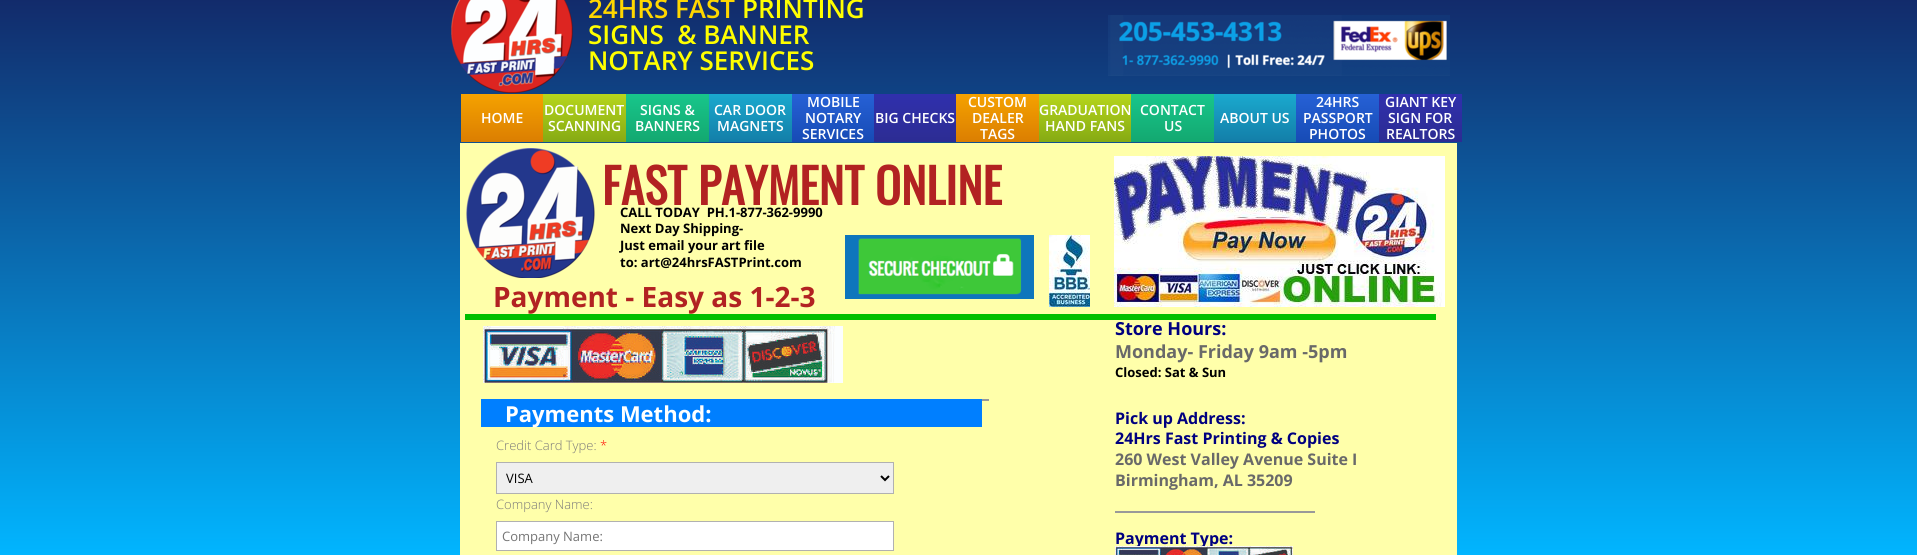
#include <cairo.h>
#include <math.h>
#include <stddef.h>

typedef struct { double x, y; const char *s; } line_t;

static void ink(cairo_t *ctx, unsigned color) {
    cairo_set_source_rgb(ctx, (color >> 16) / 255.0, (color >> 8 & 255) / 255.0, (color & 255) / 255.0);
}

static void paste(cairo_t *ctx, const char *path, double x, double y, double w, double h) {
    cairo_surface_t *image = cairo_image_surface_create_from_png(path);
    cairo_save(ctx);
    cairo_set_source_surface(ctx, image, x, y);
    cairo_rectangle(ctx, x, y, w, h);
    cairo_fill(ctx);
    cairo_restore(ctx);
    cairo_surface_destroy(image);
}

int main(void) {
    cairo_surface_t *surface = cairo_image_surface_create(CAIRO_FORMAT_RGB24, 1917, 555);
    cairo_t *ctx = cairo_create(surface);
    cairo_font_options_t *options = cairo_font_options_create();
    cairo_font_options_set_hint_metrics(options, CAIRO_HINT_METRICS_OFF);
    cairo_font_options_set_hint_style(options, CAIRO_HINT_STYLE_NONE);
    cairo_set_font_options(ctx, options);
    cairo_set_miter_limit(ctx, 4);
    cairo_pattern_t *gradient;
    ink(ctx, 0xFFFFFF);
    cairo_paint(ctx);
    gradient = cairo_pattern_create_linear(959, 0, 959, 555);
    cairo_pattern_add_color_stop_rgba(gradient, 0, 0.071, 0.169, 0.42, 1);
    cairo_pattern_add_color_stop_rgba(gradient, 1, 0.004, 0.71, 1, 1);
    cairo_set_source(ctx, gradient);
    cairo_pattern_destroy(gradient);
    cairo_rectangle(ctx, 0, 0, 1917, 555);
    cairo_fill(ctx);
    ink(ctx, 0xFFFFAA);
    cairo_rectangle(ctx, 460, 143, 997, 412);
    cairo_fill(ctx);
    paste(ctx, "media/1.png", 451, 0, 122, 94);
    cairo_select_font_face(ctx, "Open Sans SemiBold", CAIRO_FONT_SLANT_NORMAL, CAIRO_FONT_WEIGHT_NORMAL);
    cairo_set_font_size(ctx, 26);
    ink(ctx, 0xFFD700);
    cairo_move_to(ctx, 588, 18);
    cairo_show_text(ctx, "24HRS FAST");
    ink(ctx, 0xFFFF00);
    {
        static const line_t items[] = {
            {742, 18, "PRINTING"},
            {588, 44, "SIGNS  & BANNER"},
            {588, 70, "NOTARY SERVICES"},
        };
        for (size_t i = 0; i < sizeof items / sizeof *items; i++) {
            cairo_move_to(ctx, items[i].x, items[i].y);
            cairo_show_text(ctx, items[i].s);
        }
    }
    paste(ctx, "media/2.png", 1108, 15, 342, 61);
    gradient = cairo_pattern_create_linear(502, 94, 502, 142);
    cairo_pattern_add_color_stop_rgba(gradient, 0, 0.961, 0.635, 0, 1);
    cairo_pattern_add_color_stop_rgba(gradient, 1, 0.859, 0.494, 0.004, 1);
    cairo_set_source(ctx, gradient);
    cairo_pattern_destroy(gradient);
    cairo_rectangle(ctx, 461, 94, 82, 48);
    cairo_fill(ctx);
    cairo_set_font_size(ctx, 14);
    ink(ctx, 0xFFFFFF);
    cairo_move_to(ctx, 481, 123);
    cairo_show_text(ctx, "HOME");
    gradient = cairo_pattern_create_linear(585, 94, 585, 142);
    cairo_pattern_add_color_stop_rgba(gradient, 0, 0.718, 0.839, 0.11, 1);
    cairo_pattern_add_color_stop_rgba(gradient, 1, 0.522, 0.667, 0.075, 1);
    cairo_set_source(ctx, gradient);
    cairo_pattern_destroy(gradient);
    cairo_rectangle(ctx, 543, 94, 83, 48);
    cairo_fill(ctx);
    ink(ctx, 0xFFFFFF);
    cairo_move_to(ctx, 544, 115);
    cairo_show_text(ctx, "DOCUMENT");
    cairo_move_to(ctx, 548, 131);
    cairo_show_text(ctx, "SCANNING");
    gradient = cairo_pattern_create_linear(668, 94, 668, 142);
    cairo_pattern_add_color_stop_rgba(gradient, 0, 0.094, 0.776, 0.545, 1);
    cairo_pattern_add_color_stop_rgba(gradient, 1, 0.075, 0.659, 0.439, 1);
    cairo_set_source(ctx, gradient);
    cairo_pattern_destroy(gradient);
    cairo_rectangle(ctx, 626, 94, 83, 48);
    cairo_fill(ctx);
    ink(ctx, 0xFFFFFF);
    cairo_move_to(ctx, 640, 115);
    cairo_show_text(ctx, "SIGNS &");
    cairo_move_to(ctx, 635, 131);
    cairo_show_text(ctx, "BANNERS");
    gradient = cairo_pattern_create_linear(751, 94, 751, 142);
    cairo_pattern_add_color_stop_rgba(gradient, 0, 0.102, 0.663, 0.808, 1);
    cairo_pattern_add_color_stop_rgba(gradient, 1, 0.075, 0.494, 0.659, 1);
    cairo_set_source(ctx, gradient);
    cairo_pattern_destroy(gradient);
    cairo_rectangle(ctx, 709, 94, 83, 48);
    cairo_fill(ctx);
    ink(ctx, 0xFFFFFF);
    cairo_move_to(ctx, 714, 115);
    cairo_show_text(ctx, "CAR DOOR");
    cairo_move_to(ctx, 717, 131);
    cairo_show_text(ctx, "MAGNETS");
    gradient = cairo_pattern_create_linear(833, 94, 833, 142);
    cairo_pattern_add_color_stop_rgba(gradient, 0, 0.149, 0.38, 0.839, 1);
    cairo_pattern_add_color_stop_rgba(gradient, 1, 0.09, 0.294, 0.71, 1);
    cairo_set_source(ctx, gradient);
    cairo_pattern_destroy(gradient);
    cairo_rectangle(ctx, 792, 94, 82, 48);
    cairo_fill(ctx);
    ink(ctx, 0xFFFFFF);
    {
        static const line_t items[] = {
            {807, 107, "MOBILE"},
            {805, 123, "NOTARY"},
            {802, 139, "SERVICES"},
        };
        for (size_t i = 0; i < sizeof items / sizeof *items; i++) {
            cairo_move_to(ctx, items[i].x, items[i].y);
            cairo_show_text(ctx, items[i].s);
        }
    }
    gradient = cairo_pattern_create_linear(915, 94, 915, 142);
    cairo_pattern_add_color_stop_rgba(gradient, 0, 0.188, 0.188, 0.678, 1);
    cairo_pattern_add_color_stop_rgba(gradient, 1, 0.173, 0.173, 0.576, 1);
    cairo_set_source(ctx, gradient);
    cairo_pattern_destroy(gradient);
    cairo_rectangle(ctx, 874, 94, 82, 48);
    cairo_fill(ctx);
    ink(ctx, 0xFFFFFF);
    cairo_move_to(ctx, 875, 123);
    cairo_show_text(ctx, "BIG CHECKS");
    gradient = cairo_pattern_create_linear(998, 94, 998, 142);
    cairo_pattern_add_color_stop_rgba(gradient, 0, 0.961, 0.635, 0, 1);
    cairo_pattern_add_color_stop_rgba(gradient, 1, 0.859, 0.494, 0.004, 1);
    cairo_set_source(ctx, gradient);
    cairo_pattern_destroy(gradient);
    cairo_rectangle(ctx, 956, 94, 83, 48);
    cairo_fill(ctx);
    ink(ctx, 0xFFFFFF);
    {
        static const line_t items[] = {
            {968, 107, "CUSTOM"},
            {972, 123, "DEALER"},
            {980, 139, "TAGS"},
        };
        for (size_t i = 0; i < sizeof items / sizeof *items; i++) {
            cairo_move_to(ctx, items[i].x, items[i].y);
            cairo_show_text(ctx, items[i].s);
        }
    }
    gradient = cairo_pattern_create_linear(1085, 94, 1085, 142);
    cairo_pattern_add_color_stop_rgba(gradient, 0, 0.718, 0.839, 0.11, 1);
    cairo_pattern_add_color_stop_rgba(gradient, 1, 0.522, 0.667, 0.075, 1);
    cairo_set_source(ctx, gradient);
    cairo_pattern_destroy(gradient);
    cairo_rectangle(ctx, 1039, 94, 92, 48);
    cairo_fill(ctx);
    ink(ctx, 0xFFFFFF);
    cairo_move_to(ctx, 1039, 115);
    cairo_show_text(ctx, "GRADUATION");
    cairo_move_to(ctx, 1045, 131);
    cairo_show_text(ctx, "HAND FANS");
    gradient = cairo_pattern_create_linear(1173, 94, 1173, 142);
    cairo_pattern_add_color_stop_rgba(gradient, 0, 0.094, 0.776, 0.545, 1);
    cairo_pattern_add_color_stop_rgba(gradient, 1, 0.075, 0.659, 0.439, 1);
    cairo_set_source(ctx, gradient);
    cairo_pattern_destroy(gradient);
    cairo_rectangle(ctx, 1131, 94, 83, 48);
    cairo_fill(ctx);
    ink(ctx, 0xFFFFFF);
    cairo_move_to(ctx, 1140, 115);
    cairo_show_text(ctx, "CONTACT");
    cairo_move_to(ctx, 1164, 131);
    cairo_show_text(ctx, "US");
    gradient = cairo_pattern_create_linear(1255, 94, 1255, 142);
    cairo_pattern_add_color_stop_rgba(gradient, 0, 0.102, 0.663, 0.808, 1);
    cairo_pattern_add_color_stop_rgba(gradient, 1, 0.075, 0.494, 0.659, 1);
    cairo_set_source(ctx, gradient);
    cairo_pattern_destroy(gradient);
    cairo_rectangle(ctx, 1214, 94, 82, 48);
    cairo_fill(ctx);
    ink(ctx, 0xFFFFFF);
    cairo_move_to(ctx, 1220, 123);
    cairo_show_text(ctx, "ABOUT US");
    gradient = cairo_pattern_create_linear(1338, 94, 1338, 142);
    cairo_pattern_add_color_stop_rgba(gradient, 0, 0.149, 0.38, 0.839, 1);
    cairo_pattern_add_color_stop_rgba(gradient, 1, 0.09, 0.294, 0.71, 1);
    cairo_set_source(ctx, gradient);
    cairo_pattern_destroy(gradient);
    cairo_rectangle(ctx, 1296, 94, 83, 48);
    cairo_fill(ctx);
    ink(ctx, 0xFFFFFF);
    {
        static const line_t items[] = {
            {1316, 107, "24HRS"},
            {1303, 123, "PASSPORT"},
            {1309, 139, "PHOTOS"},
        };
        for (size_t i = 0; i < sizeof items / sizeof *items; i++) {
            cairo_move_to(ctx, items[i].x, items[i].y);
            cairo_show_text(ctx, items[i].s);
        }
    }
    gradient = cairo_pattern_create_linear(1421, 94, 1421, 142);
    cairo_pattern_add_color_stop_rgba(gradient, 0, 0.188, 0.188, 0.678, 1);
    cairo_pattern_add_color_stop_rgba(gradient, 1, 0.173, 0.173, 0.576, 1);
    cairo_set_source(ctx, gradient);
    cairo_pattern_destroy(gradient);
    cairo_rectangle(ctx, 1379, 94, 83, 48);
    cairo_fill(ctx);
    ink(ctx, 0xFFFFFF);
    {
        static const line_t items[] = {
            {1385, 107, "GIANT KEY"},
            {1388, 123, "SIGN FOR"},
            {1386, 139, "REALTORS"},
        };
        for (size_t i = 0; i < sizeof items / sizeof *items; i++) {
            cairo_move_to(ctx, items[i].x, items[i].y);
            cairo_show_text(ctx, items[i].s);
        }
    }
    paste(ctx, "media/3.png", 466, 148, 129, 130);
    cairo_select_font_face(ctx, "Oswald", CAIRO_FONT_SLANT_NORMAL, CAIRO_FONT_WEIGHT_BOLD);
    cairo_set_font_size(ctx, 48);
    ink(ctx, 0xB22222);
    cairo_move_to(ctx, 602, 205);
    cairo_show_text(ctx, "FAST PAYMENT ONLINE");
    paste(ctx, "media/4.png", 1114, 156, 331, 151);
    cairo_select_font_face(ctx, "Open Sans", CAIRO_FONT_SLANT_NORMAL, CAIRO_FONT_WEIGHT_BOLD);
    cairo_set_font_size(ctx, 13);
    ink(ctx, 0x000000);
    {
        static const line_t items[] = {
            {620, 217, "CALL TODAY  PH.1-877-362-9990"},
            {620, 233, "Next Day Shipping-"},
            {620, 250, "Just email your art file"},
            {620, 267, "to: art@24hrsFASTPrint.com"},
        };
        for (size_t i = 0; i < sizeof items / sizeof *items; i++) {
            cairo_move_to(ctx, items[i].x, items[i].y);
            cairo_show_text(ctx, items[i].s);
        }
    }
    paste(ctx, "media/5.png", 845, 235, 189, 64);
    paste(ctx, "media/6.png", 1049, 235, 41, 72);
    cairo_set_font_size(ctx, 28);
    ink(ctx, 0xB22222);
    cairo_move_to(ctx, 493, 307);
    cairo_show_text(ctx, "Payment - Easy as 1-2-3");
    ink(ctx, 0x00BF00);
    cairo_rectangle(ctx, 465, 314, 971, 6);
    cairo_fill(ctx);
    paste(ctx, "media/7.png", 483, 326, 360, 57);
    cairo_set_font_size(ctx, 18);
    ink(ctx, 0x000080);
    cairo_move_to(ctx, 1115, 335);
    cairo_show_text(ctx, "Store Hours:");
    ink(ctx, 0x696969);
    cairo_move_to(ctx, 1115, 358);
    cairo_show_text(ctx, "Monday- Friday 9am -5pm");
    cairo_set_font_size(ctx, 13);
    ink(ctx, 0x000000);
    cairo_move_to(ctx, 1115, 377);
    cairo_show_text(ctx, "Closed: Sat & Sun");
    cairo_set_font_size(ctx, 16);
    ink(ctx, 0x000080);
    cairo_move_to(ctx, 1115, 424);
    cairo_show_text(ctx, "Pick up Address:");
    cairo_move_to(ctx, 1115, 444);
    cairo_show_text(ctx, "24Hrs Fast Printing & Copies");
    ink(ctx, 0x696969);
    cairo_move_to(ctx, 1115, 465);
    cairo_show_text(ctx, "260 West Valley Avenue Suite I");
    cairo_move_to(ctx, 1115, 486);
    cairo_show_text(ctx, "Birmingham, AL 35209");
    ink(ctx, 0x000080);
    cairo_move_to(ctx, 1115, 544);
    cairo_show_text(ctx, "Payment Type:");
    ink(ctx, 0x007FFF);
    cairo_rectangle(ctx, 481, 399, 501, 28);
    cairo_fill(ctx);
    ink(ctx, 0x999999);
    cairo_rectangle(ctx, 982, 399, 7, 2);
    cairo_fill(ctx);
    cairo_set_font_size(ctx, 22);
    ink(ctx, 0xFFFFFF);
    cairo_move_to(ctx, 505, 422);
    cairo_show_text(ctx, "Payments Method:");
    cairo_select_font_face(ctx, "Open Sans Light", CAIRO_FONT_SLANT_NORMAL, CAIRO_FONT_WEIGHT_NORMAL);
    cairo_set_font_size(ctx, 13);
    ink(ctx, 0x7C7B7B);
    cairo_move_to(ctx, 496, 450);
    cairo_show_text(ctx, "Credit Card Type:");
    ink(ctx, 0xFF0000);
    cairo_move_to(ctx, 600, 450);
    cairo_show_text(ctx, "*");
    ink(ctx, 0xEFEFEF);
    cairo_rectangle(ctx, 496.5, 462.5, 397, 31);
    cairo_fill_preserve(ctx);
    ink(ctx, 0xB1B1B1);
    cairo_set_line_width(ctx, 1);
    cairo_stroke(ctx);
    cairo_new_path(ctx);
    cairo_move_to(ctx, 881, 476);
    cairo_line_to(ctx, 885, 480);
    cairo_line_to(ctx, 889, 476);
    ink(ctx, 0x000000);
    cairo_set_line_width(ctx, 2);
    cairo_stroke(ctx);
    cairo_select_font_face(ctx, "Open Sans", CAIRO_FONT_SLANT_NORMAL, CAIRO_FONT_WEIGHT_NORMAL);
    cairo_move_to(ctx, 506, 483);
    cairo_show_text(ctx, "VISA");
    cairo_select_font_face(ctx, "Open Sans Light", CAIRO_FONT_SLANT_NORMAL, CAIRO_FONT_WEIGHT_NORMAL);
    ink(ctx, 0x7C7B7B);
    cairo_move_to(ctx, 496, 509);
    cairo_show_text(ctx, "Company Name:");
    ink(ctx, 0xFFFFFF);
    cairo_rectangle(ctx, 496.5, 521.5, 397, 29);
    cairo_fill_preserve(ctx);
    ink(ctx, 0xB1B1B1);
    cairo_set_line_width(ctx, 1);
    cairo_stroke(ctx);
    cairo_select_font_face(ctx, "Open Sans", CAIRO_FONT_SLANT_NORMAL, CAIRO_FONT_WEIGHT_NORMAL);
    ink(ctx, 0x757575);
    cairo_move_to(ctx, 502, 541);
    cairo_show_text(ctx, "Company Name:");
    ink(ctx, 0x999999);
    cairo_rectangle(ctx, 1115, 511, 200, 2);
    cairo_fill(ctx);
    paste(ctx, "media/8.png", 1115, 546, 178, 9);
    cairo_surface_write_to_png(surface, "image.png");
    cairo_font_options_destroy(options);
    cairo_destroy(ctx);
    cairo_surface_destroy(surface);
    return 0;
}
